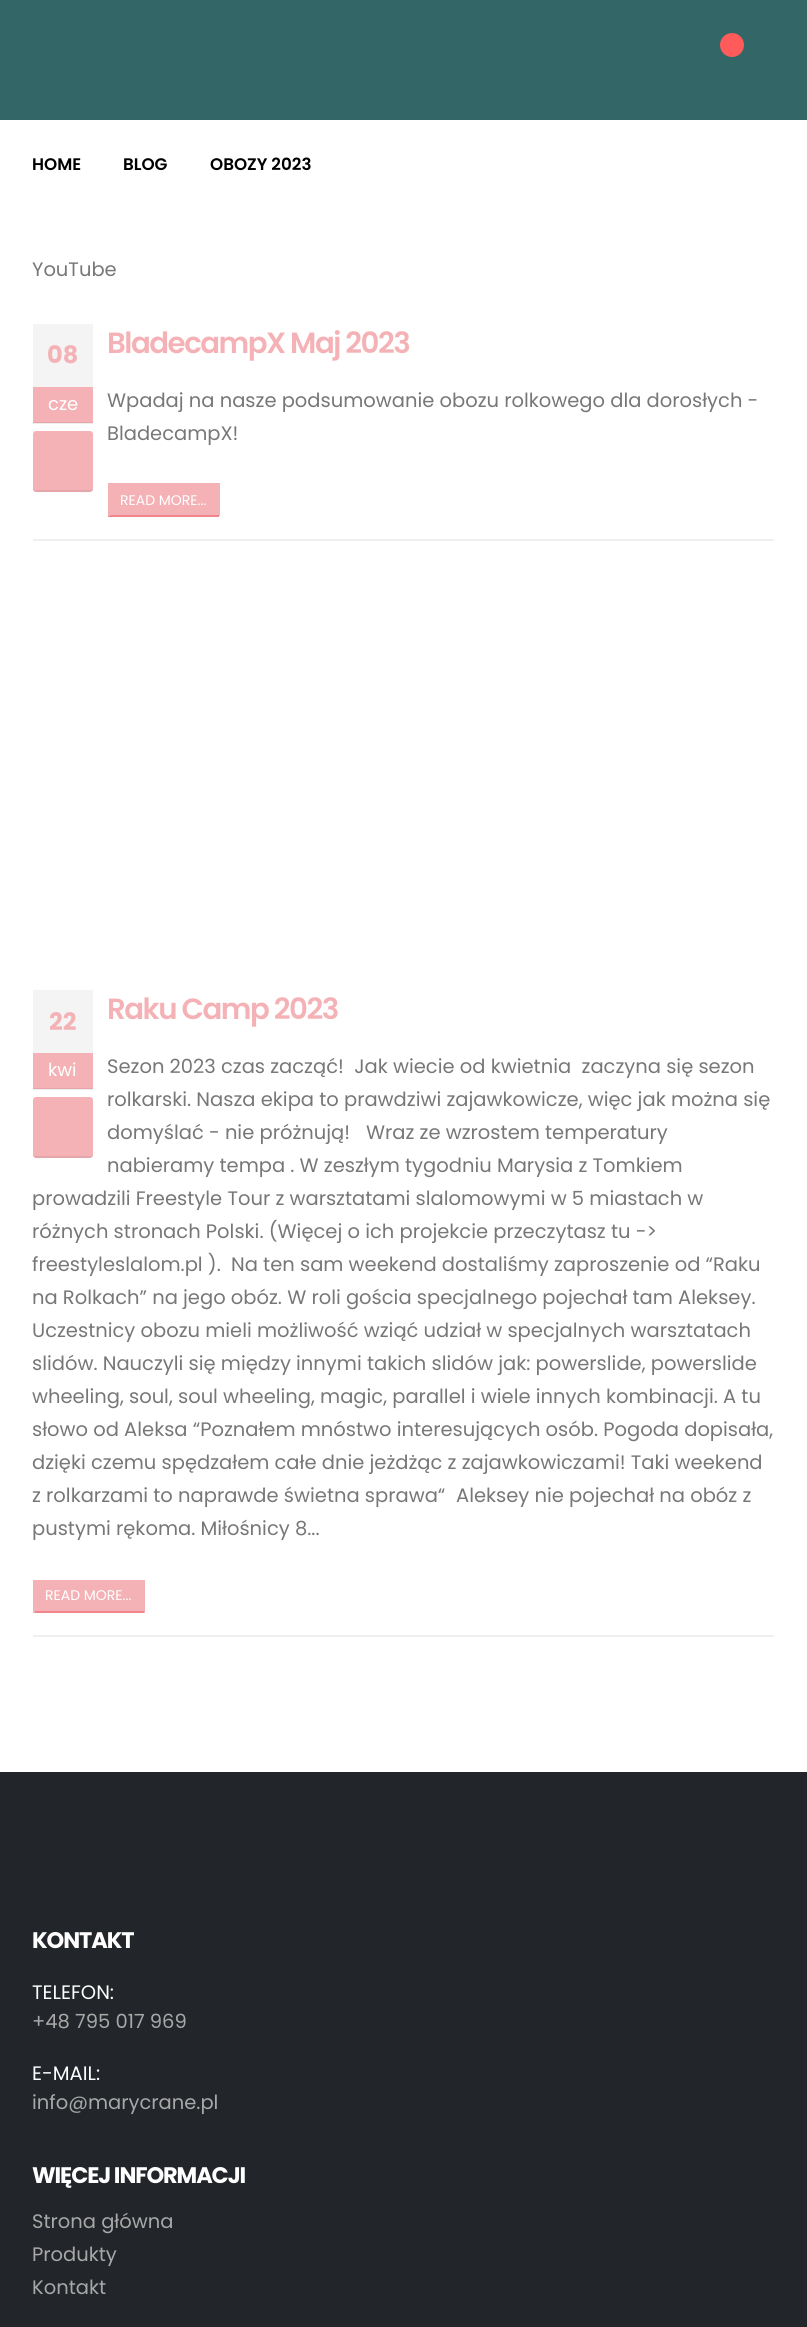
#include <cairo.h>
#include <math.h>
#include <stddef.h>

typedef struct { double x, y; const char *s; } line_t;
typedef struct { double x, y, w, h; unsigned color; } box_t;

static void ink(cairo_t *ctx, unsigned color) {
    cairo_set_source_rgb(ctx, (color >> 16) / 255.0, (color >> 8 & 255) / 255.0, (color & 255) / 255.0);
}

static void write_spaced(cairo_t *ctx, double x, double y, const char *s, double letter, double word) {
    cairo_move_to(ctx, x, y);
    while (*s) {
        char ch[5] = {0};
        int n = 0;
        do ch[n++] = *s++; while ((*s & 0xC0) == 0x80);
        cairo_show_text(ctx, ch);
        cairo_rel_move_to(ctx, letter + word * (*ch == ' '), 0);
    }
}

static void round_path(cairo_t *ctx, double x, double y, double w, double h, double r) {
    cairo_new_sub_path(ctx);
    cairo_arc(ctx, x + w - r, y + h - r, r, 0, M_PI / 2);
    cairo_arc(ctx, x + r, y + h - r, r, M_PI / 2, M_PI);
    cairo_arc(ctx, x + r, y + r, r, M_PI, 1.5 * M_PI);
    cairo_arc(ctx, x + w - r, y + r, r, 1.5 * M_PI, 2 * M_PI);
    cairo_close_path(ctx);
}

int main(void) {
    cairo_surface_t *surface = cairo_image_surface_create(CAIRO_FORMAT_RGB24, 807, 2327);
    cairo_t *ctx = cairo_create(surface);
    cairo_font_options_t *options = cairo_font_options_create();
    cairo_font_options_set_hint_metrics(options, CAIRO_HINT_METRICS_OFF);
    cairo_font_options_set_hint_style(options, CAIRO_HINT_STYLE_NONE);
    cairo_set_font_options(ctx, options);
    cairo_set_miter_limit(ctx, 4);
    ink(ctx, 0xFFFFFF);
    cairo_paint(ctx);
    {
        static const box_t items[] = {
            {33, 1089, 60, 1, 0xEDEDED},
            {33, 423, 60, 1, 0xEDEDED},
            {0, 0, 807, 120, 0x336666},
        };
        for (size_t i = 0; i < sizeof items / sizeof *items; i++) {
            ink(ctx, items[i].color);
            cairo_rectangle(ctx, items[i].x, items[i].y, items[i].w, items[i].h);
            cairo_fill(ctx);
        }
    }
    ink(ctx, 0xFF5B5B);
    cairo_arc(ctx, 732, 45, 12, 0, 2 * M_PI);
    cairo_fill(ctx);
    cairo_select_font_face(ctx, "Poppins SemiBold", CAIRO_FONT_SLANT_NORMAL, CAIRO_FONT_WEIGHT_NORMAL);
    cairo_set_font_size(ctx, 16.75);
    ink(ctx, 0x000000);
    {
        static const line_t items[] = {
            {32, 170, "HOME"},
            {123, 170, "BLOG"},
            {210, 170, "OBOZY 2023"},
        };
        for (size_t i = 0; i < sizeof items / sizeof *items; i++) {
            cairo_move_to(ctx, items[i].x, items[i].y);
            cairo_show_text(ctx, items[i].s);
        }
    }
    ink(ctx, 0xF0F0F0);
    cairo_rectangle(ctx, 33, 539, 741, 2);
    cairo_fill(ctx);
    cairo_select_font_face(ctx, "Poppins", CAIRO_FONT_SLANT_NORMAL, CAIRO_FONT_WEIGHT_NORMAL);
    cairo_set_font_size(ctx, 19.5);
    ink(ctx, 0x777777);
    cairo_move_to(ctx, 32, 276);
    cairo_show_text(ctx, "YouTube");
    ink(ctx, 0xF4F4F4);
    cairo_rectangle(ctx, 33, 324, 60, 63);
    cairo_fill(ctx);
    cairo_select_font_face(ctx, "Poppins", CAIRO_FONT_SLANT_NORMAL, CAIRO_FONT_WEIGHT_BOLD);
    cairo_set_font_size(ctx, 24);
    ink(ctx, 0xF5B2B6);
    cairo_move_to(ctx, 47, 363);
    cairo_show_text(ctx, "08");
    cairo_rectangle(ctx, 33, 387, 60, 35);
    cairo_fill(ctx);
    ink(ctx, 0xE4A6A9);
    cairo_rectangle(ctx, 33, 422, 60, 1);
    cairo_fill(ctx);
    cairo_select_font_face(ctx, "Poppins", CAIRO_FONT_SLANT_NORMAL, CAIRO_FONT_WEIGHT_NORMAL);
    cairo_set_font_size(ctx, 18);
    ink(ctx, 0xFFFFFF);
    cairo_move_to(ctx, 48, 410);
    cairo_show_text(ctx, "cze");
    ink(ctx, 0xF5B2B6);
    round_path(ctx, 33, 431, 60, 61, 3);
    cairo_fill(ctx);
    cairo_set_source_rgba(ctx, 0, 0, 0, 0.07);
    cairo_new_path(ctx);
    cairo_move_to(ctx, 33, 488);
    cairo_curve_to(ctx, 33, 494, 41, 492, 45, 492);
    cairo_line_to(ctx, 81, 492);
    cairo_curve_to(ctx, 85, 492, 93, 494, 93, 488);
    cairo_curve_to(ctx, 93, 489, 92, 490, 90, 490);
    cairo_line_to(ctx, 36, 490);
    cairo_curve_to(ctx, 34, 490, 33, 489, 33, 488);
    cairo_close_path(ctx);
    cairo_fill(ctx);
    cairo_select_font_face(ctx, "Poppins SemiBold", CAIRO_FONT_SLANT_NORMAL, CAIRO_FONT_WEIGHT_NORMAL);
    cairo_set_font_size(ctx, 29.25);
    ink(ctx, 0xF5B2B6);
    write_spaced(ctx, 107, 353, "BladecampX Maj 2023", -1.5, 0);
    cairo_select_font_face(ctx, "Poppins", CAIRO_FONT_SLANT_NORMAL, CAIRO_FONT_WEIGHT_NORMAL);
    cairo_set_font_size(ctx, 19.5);
    ink(ctx, 0x777777);
    cairo_move_to(ctx, 107, 407);
    cairo_show_text(ctx, "Wpadaj na nasze podsumowanie obozu rolkowego dla dorosłych -");
    cairo_move_to(ctx, 107, 440);
    cairo_show_text(ctx, "BladecampX!");
    {
        static const box_t items[] = {
            {110, 483, 108, 32, 0xF5B2B6},
            {218, 483, 2, 33, 0xF5B2B6},
            {108, 515, 111, 2, 0xF0858C},
            {108, 483, 2, 33, 0xF5B2B6},
        };
        for (size_t i = 0; i < sizeof items / sizeof *items; i++) {
            ink(ctx, items[i].color);
            cairo_rectangle(ctx, items[i].x, items[i].y, items[i].w, items[i].h);
            cairo_fill(ctx);
        }
    }
    cairo_set_font_size(ctx, 14);
    ink(ctx, 0xFFFFFF);
    cairo_move_to(ctx, 120, 505);
    cairo_show_text(ctx, "READ MORE...");
    ink(ctx, 0xF0F0F0);
    cairo_rectangle(ctx, 33, 1635, 741, 2);
    cairo_fill(ctx);
    cairo_select_font_face(ctx, "Poppins SemiBold", CAIRO_FONT_SLANT_NORMAL, CAIRO_FONT_WEIGHT_NORMAL);
    cairo_set_font_size(ctx, 29.25);
    ink(ctx, 0xF5B2B6);
    write_spaced(ctx, 107, 1019, "Raku Camp 2023", -1.5, 0);
    cairo_select_font_face(ctx, "Poppins", CAIRO_FONT_SLANT_NORMAL, CAIRO_FONT_WEIGHT_NORMAL);
    cairo_set_font_size(ctx, 19.5);
    ink(ctx, 0x777777);
    {
        static const line_t items[] = {
            {107, 1073, "Sezon 2023 czas zacząć!  Jak wiecie od kwietnia  zaczyna się sezon"},
            {107, 1106, "rolkarski. Nasza ekipa to prawdziwi zajawkowicze, więc jak można się"},
            {107, 1139, "domyślać - nie próżnują!"},
            {366, 1139, "Wraz ze wzrostem temperatury"},
            {107, 1172, "nabieramy tempa . W zeszłym tygodniu Marysia z Tomkiem"},
            {32, 1205, "prowadzili Freestyle Tour z warsztatami slalomowymi w 5 miastach w"},
            {32, 1238, "różnych stronach Polski. (Więcej o ich projekcie przeczytasz tu ->"},
            {32, 1271, "freestyleslalom.pl )."},
            {231, 1271, "Na ten sam weekend dostaliśmy zaproszenie od “Raku"},
            {32, 1304, "na Rolkach” na jego obóz. W roli gościa specjalnego pojechał tam Aleksey."},
            {32, 1337, "Uczestnicy obozu mieli możliwość wziąć udział w specjalnych warsztatach"},
            {32, 1370, "slidów. Nauczyli się między innymi takich slidów jak: powerslide, powerslide"},
            {32, 1403, "wheeling, soul, soul wheeling, magic, parallel i wiele innych kombinacji. A tu"},
            {32, 1436, "słowo od Aleksa “Poznałem mnóstwo interesujących osób. Pogoda dopisała,"},
            {32, 1469, "dzięki czemu spędzałem całe dnie jeżdżąc z zajawkowiczami! Taki weekend"},
            {32, 1502, "z rolkarzami to naprawde świetna sprawa“"},
            {456, 1502, "Aleksey nie pojechał na obóz z"},
            {32, 1535, "pustymi rękoma. Miłośnicy 8..."},
        };
        for (size_t i = 0; i < sizeof items / sizeof *items; i++) {
            cairo_move_to(ctx, items[i].x, items[i].y);
            cairo_show_text(ctx, items[i].s);
        }
    }
    ink(ctx, 0xF4F4F4);
    cairo_rectangle(ctx, 33, 990, 60, 63);
    cairo_fill(ctx);
    cairo_select_font_face(ctx, "Poppins", CAIRO_FONT_SLANT_NORMAL, CAIRO_FONT_WEIGHT_BOLD);
    cairo_set_font_size(ctx, 24);
    ink(ctx, 0xF5B2B6);
    cairo_move_to(ctx, 49, 1030);
    cairo_show_text(ctx, "22");
    cairo_rectangle(ctx, 33, 1053, 60, 35);
    cairo_fill(ctx);
    ink(ctx, 0xE4A6A9);
    cairo_rectangle(ctx, 33, 1088, 60, 1);
    cairo_fill(ctx);
    cairo_select_font_face(ctx, "Poppins", CAIRO_FONT_SLANT_NORMAL, CAIRO_FONT_WEIGHT_NORMAL);
    cairo_set_font_size(ctx, 18);
    ink(ctx, 0xFFFFFF);
    cairo_move_to(ctx, 48, 1076);
    cairo_show_text(ctx, "kwi");
    ink(ctx, 0xF5B2B6);
    round_path(ctx, 33, 1097, 60, 61, 3);
    cairo_fill(ctx);
    cairo_set_source_rgba(ctx, 0, 0, 0, 0.07);
    cairo_new_path(ctx);
    cairo_move_to(ctx, 33, 1154);
    cairo_curve_to(ctx, 33, 1160, 41, 1158, 45, 1158);
    cairo_line_to(ctx, 81, 1158);
    cairo_curve_to(ctx, 85, 1158, 93, 1160, 93, 1154);
    cairo_curve_to(ctx, 93, 1155, 92, 1156, 90, 1156);
    cairo_line_to(ctx, 36, 1156);
    cairo_curve_to(ctx, 34, 1156, 33, 1155, 33, 1154);
    cairo_close_path(ctx);
    cairo_fill(ctx);
    {
        static const box_t items[] = {
            {35, 1580, 108, 31, 0xF5B2B6},
            {143, 1580, 2, 33, 0xF5B2B6},
            {33, 1611, 111, 2, 0xF0858C},
            {33, 1580, 2, 33, 0xF5B2B6},
        };
        for (size_t i = 0; i < sizeof items / sizeof *items; i++) {
            ink(ctx, items[i].color);
            cairo_rectangle(ctx, items[i].x, items[i].y, items[i].w, items[i].h);
            cairo_fill(ctx);
        }
    }
    cairo_set_font_size(ctx, 14);
    ink(ctx, 0xFFFFFF);
    cairo_move_to(ctx, 45, 1600);
    cairo_show_text(ctx, "READ MORE...");
    ink(ctx, 0x222529);
    cairo_rectangle(ctx, 0, 1772, 807, 555);
    cairo_fill(ctx);
    cairo_select_font_face(ctx, "Poppins", CAIRO_FONT_SLANT_NORMAL, CAIRO_FONT_WEIGHT_BOLD);
    cairo_set_font_size(ctx, 22.5);
    ink(ctx, 0xFFFFFF);
    write_spaced(ctx, 32, 1948, "KONTAKT", -1.1, 0);
    cairo_select_font_face(ctx, "Poppins", CAIRO_FONT_SLANT_NORMAL, CAIRO_FONT_WEIGHT_NORMAL);
    cairo_set_font_size(ctx, 19.5);
    cairo_move_to(ctx, 32, 1999);
    cairo_show_text(ctx, "TELEFON:");
    ink(ctx, 0xA8A8A8);
    cairo_move_to(ctx, 32, 2028);
    cairo_show_text(ctx, "+48 795 017 969");
    ink(ctx, 0xFFFFFF);
    cairo_move_to(ctx, 32, 2080);
    cairo_show_text(ctx, "E-MAIL:");
    ink(ctx, 0xA8A8A8);
    cairo_move_to(ctx, 32, 2109);
    cairo_show_text(ctx, "info@marycrane.pl");
    cairo_select_font_face(ctx, "Poppins", CAIRO_FONT_SLANT_NORMAL, CAIRO_FONT_WEIGHT_BOLD);
    cairo_set_font_size(ctx, 22.5);
    ink(ctx, 0xFFFFFF);
    write_spaced(ctx, 32, 2183, "WIĘCEJ INFORMACJI", -1.1, 0);
    cairo_select_font_face(ctx, "Poppins", CAIRO_FONT_SLANT_NORMAL, CAIRO_FONT_WEIGHT_NORMAL);
    cairo_set_font_size(ctx, 19.5);
    ink(ctx, 0xA8A8A8);
    {
        static const line_t items[] = {
            {32, 2228, "Strona główna"},
            {32, 2261, "Produkty"},
            {32, 2294, "Kontakt"},
        };
        for (size_t i = 0; i < sizeof items / sizeof *items; i++) {
            cairo_move_to(ctx, items[i].x, items[i].y);
            cairo_show_text(ctx, items[i].s);
        }
    }
    cairo_surface_write_to_png(surface, "image.png");
    cairo_font_options_destroy(options);
    cairo_destroy(ctx);
    cairo_surface_destroy(surface);
    return 0;
}
